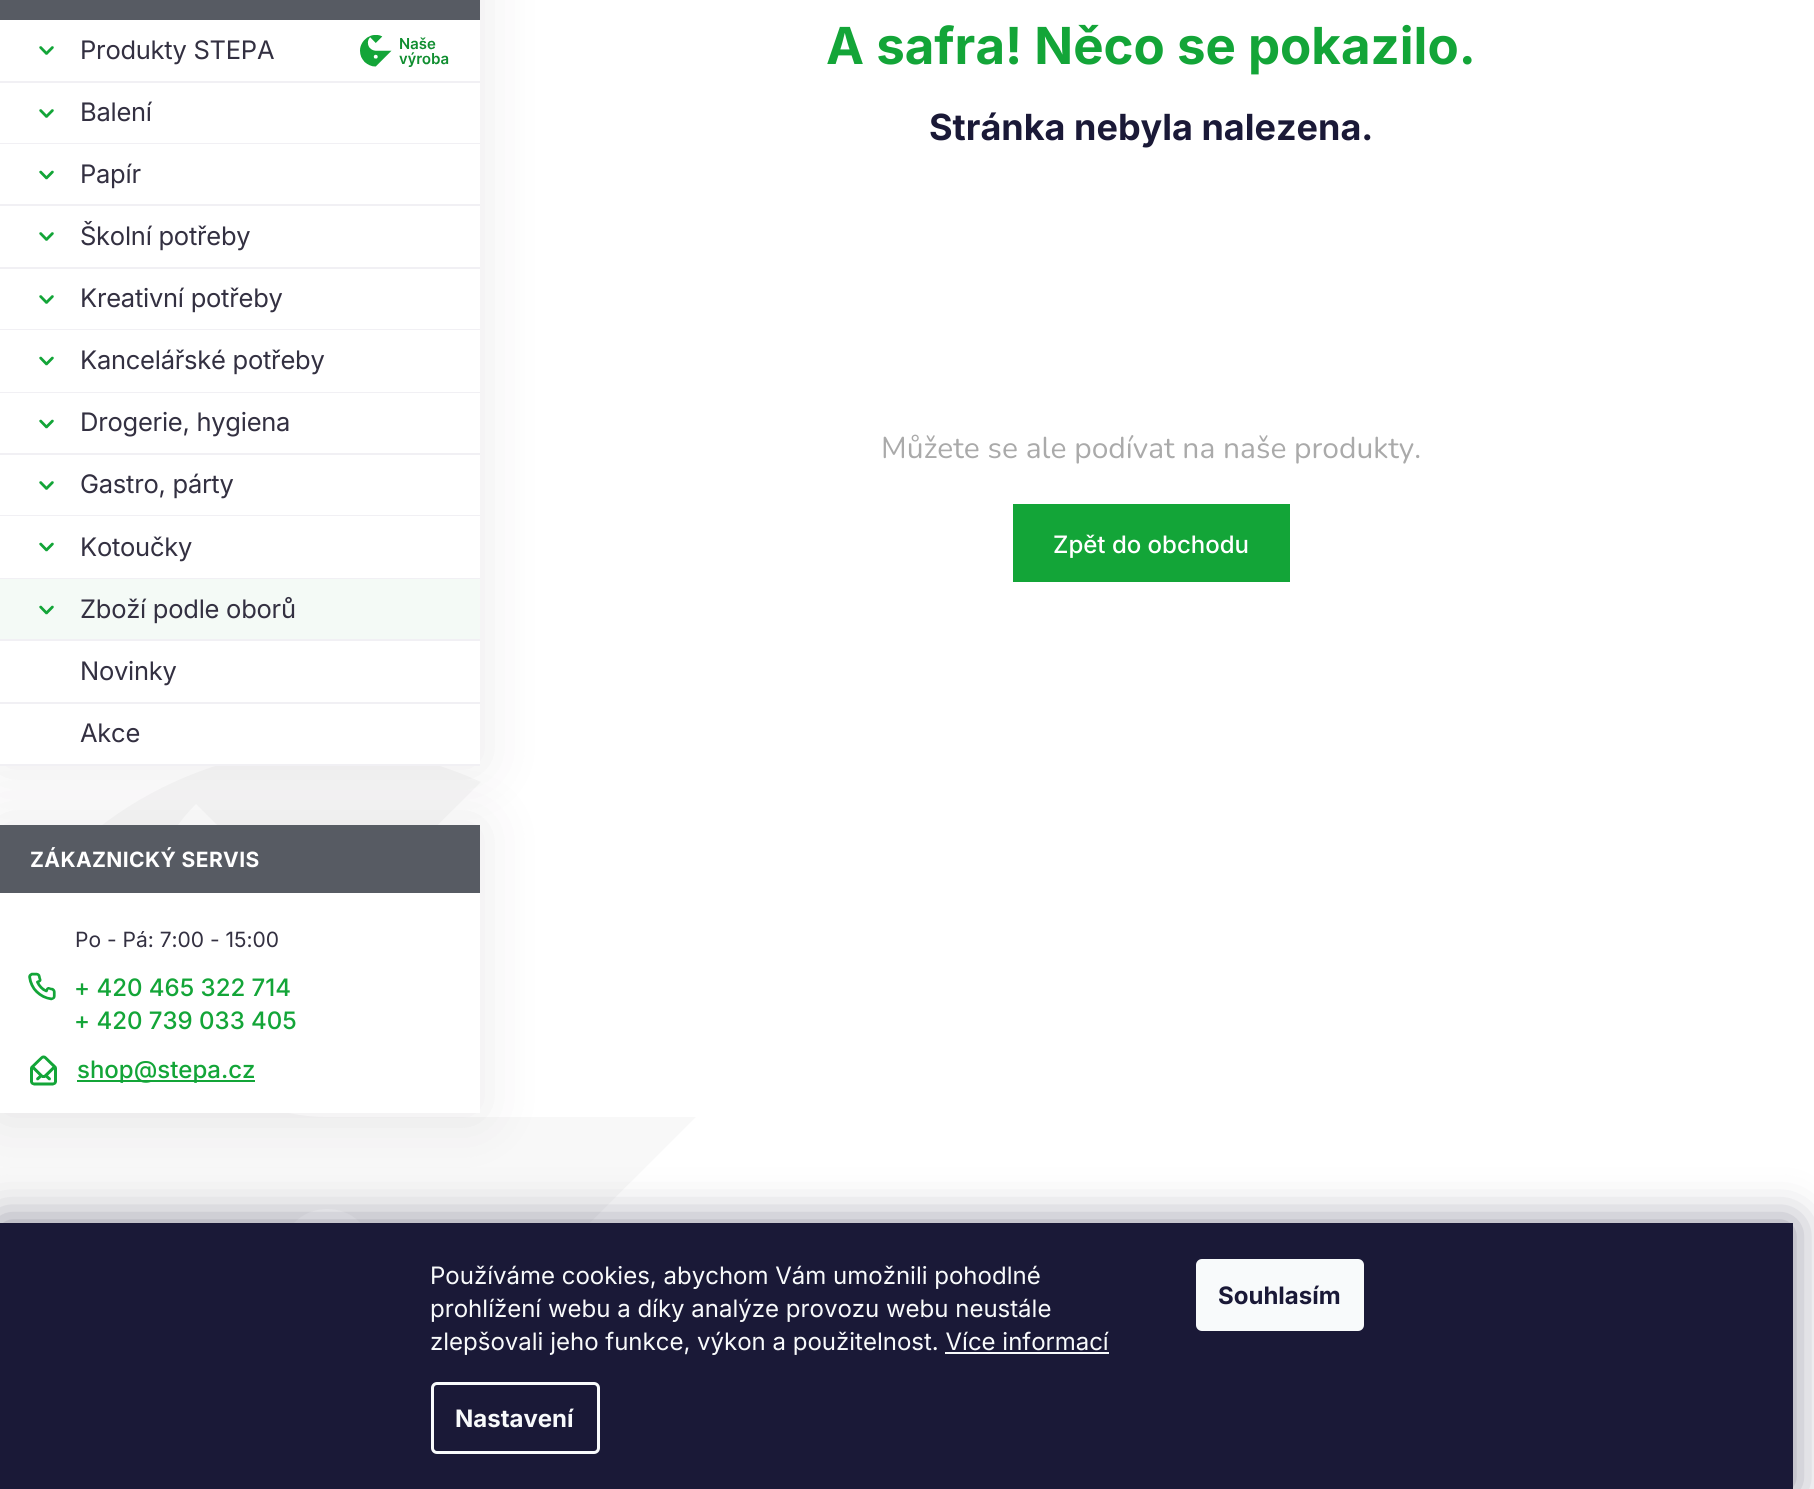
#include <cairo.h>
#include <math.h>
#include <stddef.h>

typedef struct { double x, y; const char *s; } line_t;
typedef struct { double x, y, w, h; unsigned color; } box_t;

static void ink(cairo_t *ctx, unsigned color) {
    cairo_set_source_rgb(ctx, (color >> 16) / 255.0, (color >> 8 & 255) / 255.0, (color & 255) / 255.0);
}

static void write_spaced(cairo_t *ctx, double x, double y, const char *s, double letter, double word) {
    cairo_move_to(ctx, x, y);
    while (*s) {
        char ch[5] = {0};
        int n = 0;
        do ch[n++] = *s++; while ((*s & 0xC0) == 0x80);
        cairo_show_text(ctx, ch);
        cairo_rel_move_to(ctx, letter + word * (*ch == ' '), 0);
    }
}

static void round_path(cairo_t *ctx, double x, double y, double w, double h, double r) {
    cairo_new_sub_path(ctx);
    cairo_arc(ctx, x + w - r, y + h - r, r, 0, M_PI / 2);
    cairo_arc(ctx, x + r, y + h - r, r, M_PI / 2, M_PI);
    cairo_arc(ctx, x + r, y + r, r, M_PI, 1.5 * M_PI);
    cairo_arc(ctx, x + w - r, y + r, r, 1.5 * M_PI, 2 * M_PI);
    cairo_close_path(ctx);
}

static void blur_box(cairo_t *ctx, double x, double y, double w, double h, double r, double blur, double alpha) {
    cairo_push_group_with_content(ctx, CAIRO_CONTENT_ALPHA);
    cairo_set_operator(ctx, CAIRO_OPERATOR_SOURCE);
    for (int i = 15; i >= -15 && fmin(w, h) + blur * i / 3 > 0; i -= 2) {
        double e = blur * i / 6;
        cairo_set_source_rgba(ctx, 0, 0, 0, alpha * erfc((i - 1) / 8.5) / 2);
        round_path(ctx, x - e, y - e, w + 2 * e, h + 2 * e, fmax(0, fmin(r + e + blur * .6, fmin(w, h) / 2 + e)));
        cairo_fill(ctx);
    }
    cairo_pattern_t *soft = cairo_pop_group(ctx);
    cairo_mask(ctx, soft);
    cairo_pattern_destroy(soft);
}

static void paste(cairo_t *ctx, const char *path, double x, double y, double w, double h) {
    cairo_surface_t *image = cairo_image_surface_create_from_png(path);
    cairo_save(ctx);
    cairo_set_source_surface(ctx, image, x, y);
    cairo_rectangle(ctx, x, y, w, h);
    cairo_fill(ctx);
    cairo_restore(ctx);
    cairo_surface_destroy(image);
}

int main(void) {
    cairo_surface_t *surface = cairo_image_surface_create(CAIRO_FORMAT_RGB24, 1814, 1489);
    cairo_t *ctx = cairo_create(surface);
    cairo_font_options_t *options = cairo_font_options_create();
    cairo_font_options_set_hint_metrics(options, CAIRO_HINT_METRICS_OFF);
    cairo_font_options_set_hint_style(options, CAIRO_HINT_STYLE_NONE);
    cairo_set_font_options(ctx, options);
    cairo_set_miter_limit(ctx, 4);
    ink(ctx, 0xFFFFFF);
    cairo_paint(ctx);
    ink(ctx, 0xF8F8F8);
    cairo_set_fill_rule(ctx, CAIRO_FILL_RULE_EVEN_ODD);
    cairo_new_path(ctx);
    cairo_move_to(ctx, 696, 1117);
    cairo_line_to(ctx, 327, 1485);
    cairo_curve_to(ctx, 124, 1485, -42, 1320, -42, 1117);
    cairo_curve_to(ctx, -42, 968, 46, 840, 174, 782);
    cairo_curve_to(ctx, 220, 761, 272, 748, 326, 748);
    cairo_curve_to(ctx, 383, 748, 435, 761, 481, 782);
    cairo_line_to(ctx, 327, 935);
    cairo_line_to(ctx, 196, 804);
    cairo_curve_to(ctx, 163, 837, 143, 882, 143, 933);
    cairo_curve_to(ctx, 143, 1034, 225, 1117, 327, 1117);
    cairo_close_path(ctx);
    cairo_move_to(ctx, 373, 1255);
    cairo_curve_to(ctx, 373, 1229, 353, 1209, 327, 1209);
    cairo_curve_to(ctx, 302, 1209, 281, 1229, 281, 1255);
    cairo_curve_to(ctx, 281, 1280, 302, 1301, 327, 1301);
    cairo_curve_to(ctx, 353, 1301, 373, 1280, 373, 1255);
    cairo_close_path(ctx);
    cairo_fill(ctx);
    ink(ctx, 0x201D29);
    blur_box(ctx, 0, -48, 480, 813, 0, 30, 0.1);
    {
        static const box_t items[] = {
            {0, 20, 480, 744, 0xFFFFFF},
            {0, 0, 480, 20, 0x575B63},
            {0, 81, 480, 2, 0xF1F0F4},
        };
        for (size_t i = 0; i < sizeof items / sizeof *items; i++) {
            ink(ctx, items[i].color);
            cairo_rectangle(ctx, items[i].x, items[i].y, items[i].w, items[i].h);
            cairo_fill(ctx);
        }
    }
    paste(ctx, "media/1.png", 39, 46, 15, 9);
    cairo_select_font_face(ctx, "Inter", CAIRO_FONT_SLANT_NORMAL, CAIRO_FONT_WEIGHT_NORMAL);
    cairo_set_font_size(ctx, 25.5);
    ink(ctx, 0x333041);
    write_spaced(ctx, 80, 59, "Produkty STEPA", -0.25, 0);
    paste(ctx, "media/2.png", 360, 35, 89, 32);
    ink(ctx, 0xF1F0F4);
    cairo_rectangle(ctx, 0, 143, 480, 1);
    cairo_fill(ctx);
    paste(ctx, "media/1.png", 39, 109, 15, 9);
    ink(ctx, 0x333041);
    write_spaced(ctx, 80, 121, "Balení", -0.25, 0);
    ink(ctx, 0xF1F0F4);
    cairo_rectangle(ctx, 0, 204, 480, 2);
    cairo_fill(ctx);
    paste(ctx, "media/3.png", 39, 170, 15, 10);
    ink(ctx, 0x333041);
    write_spaced(ctx, 80, 183, "Papír", -0.25, 0);
    ink(ctx, 0xF1F0F4);
    cairo_rectangle(ctx, 0, 267, 480, 2);
    cairo_fill(ctx);
    paste(ctx, "media/1.png", 39, 232, 15, 9);
    ink(ctx, 0x333041);
    write_spaced(ctx, 80, 245, "Školní potřeby", -0.25, 0);
    ink(ctx, 0xF1F0F4);
    cairo_rectangle(ctx, 0, 329, 480, 1);
    cairo_fill(ctx);
    paste(ctx, "media/1.png", 39, 295, 15, 9);
    ink(ctx, 0x333041);
    write_spaced(ctx, 80, 307, "Kreativní potřeby", -0.25, 0);
    ink(ctx, 0xF1F0F4);
    cairo_rectangle(ctx, 0, 392, 480, 1);
    cairo_fill(ctx);
    paste(ctx, "media/3.png", 39, 356, 15, 10);
    ink(ctx, 0x333041);
    write_spaced(ctx, 80, 369, "Kancelářské potřeby", -0.25, 0);
    ink(ctx, 0xF1F0F4);
    cairo_rectangle(ctx, 0, 453, 480, 2);
    cairo_fill(ctx);
    paste(ctx, "media/3.png", 39, 419, 15, 10);
    ink(ctx, 0x333041);
    write_spaced(ctx, 80, 431, "Drogerie, hygiena", -0.25, 0);
    ink(ctx, 0xF1F0F4);
    cairo_rectangle(ctx, 0, 515, 480, 1);
    cairo_fill(ctx);
    paste(ctx, "media/1.png", 39, 481, 15, 9);
    ink(ctx, 0x333041);
    write_spaced(ctx, 80, 493, "Gastro, párty", -0.25, 0);
    ink(ctx, 0xF1F0F4);
    cairo_rectangle(ctx, 0, 578, 480, 1);
    cairo_fill(ctx);
    paste(ctx, "media/3.png", 39, 542, 15, 10);
    ink(ctx, 0x333041);
    write_spaced(ctx, 80, 556, "Kotoučky", -0.25, 0);
    ink(ctx, 0xF1F0F4);
    cairo_rectangle(ctx, 0, 639, 480, 2);
    cairo_fill(ctx);
    ink(ctx, 0xF4FAF6);
    cairo_rectangle(ctx, 0, 579, 480, 60);
    cairo_fill(ctx);
    paste(ctx, "media/4.png", 39, 605, 15, 10);
    ink(ctx, 0x333041);
    write_spaced(ctx, 80, 618, "Zboží podle oborů", -0.25, 0);
    ink(ctx, 0xF1F0F4);
    cairo_rectangle(ctx, 0, 702, 480, 2);
    cairo_fill(ctx);
    ink(ctx, 0x333041);
    write_spaced(ctx, 80, 680, "Novinky", -0.25, 0);
    ink(ctx, 0xF1F0F4);
    cairo_rectangle(ctx, 0, 764, 480, 2);
    cairo_fill(ctx);
    ink(ctx, 0x333041);
    write_spaced(ctx, 80, 742, "Akce", -0.25, 0);
    ink(ctx, 0x201D29);
    blur_box(ctx, 0, 825, 480, 288, 0, 30, 0.1);
    ink(ctx, 0xFFFFFF);
    cairo_rectangle(ctx, 0, 893, 480, 220);
    cairo_fill(ctx);
    ink(ctx, 0x575B63);
    cairo_rectangle(ctx, 0, 825, 480, 68);
    cairo_fill(ctx);
    cairo_select_font_face(ctx, "Inter", CAIRO_FONT_SLANT_NORMAL, CAIRO_FONT_WEIGHT_BOLD);
    cairo_set_font_size(ctx, 21);
    ink(ctx, 0xFFFFFF);
    write_spaced(ctx, 30, 867, "ZÁKAZNICKÝ SERVIS", 0.4, 0);
    cairo_select_font_face(ctx, "Inter", CAIRO_FONT_SLANT_NORMAL, CAIRO_FONT_WEIGHT_NORMAL);
    ink(ctx, 0x333041);
    cairo_move_to(ctx, 75, 947);
    cairo_show_text(ctx, "Po - Pá: 7:00 - 15:00");
    paste(ctx, "media/5.png", 28, 972, 28, 29);
    cairo_select_font_face(ctx, "Inter Medium", CAIRO_FONT_SLANT_NORMAL, CAIRO_FONT_WEIGHT_NORMAL);
    cairo_set_font_size(ctx, 24);
    ink(ctx, 0x13A538);
    cairo_move_to(ctx, 74, 996);
    cairo_show_text(ctx, "+ 420 465 322 714");
    cairo_move_to(ctx, 74, 1029);
    cairo_show_text(ctx, "+ 420 739 033 405");
    paste(ctx, "media/6.png", 30, 1055, 27, 31);
    cairo_rectangle(ctx, 77, 1080, 178, 2);
    cairo_fill(ctx);
    cairo_move_to(ctx, 77, 1078);
    cairo_show_text(ctx, "shop@stepa.cz");
    cairo_select_font_face(ctx, "Inter", CAIRO_FONT_SLANT_NORMAL, CAIRO_FONT_WEIGHT_BOLD);
    cairo_set_font_size(ctx, 51);
    cairo_move_to(ctx, 826, 64);
    cairo_show_text(ctx, "A safra! Něco se pokazilo.");
    cairo_set_font_size(ctx, 36);
    ink(ctx, 0x1A1937);
    cairo_move_to(ctx, 929, 140);
    cairo_show_text(ctx, "Stránka nebyla nalezena.");
    cairo_select_font_face(ctx, "Nunito", CAIRO_FONT_SLANT_NORMAL, CAIRO_FONT_WEIGHT_NORMAL);
    cairo_set_font_size(ctx, 30);
    ink(ctx, 0xAAAAAA);
    cairo_move_to(ctx, 881, 458);
    cairo_show_text(ctx, "Můžete se ale podívat na naše produkty.");
    ink(ctx, 0x13A538);
    cairo_rectangle(ctx, 1013, 504, 277, 78);
    cairo_fill(ctx);
    cairo_select_font_face(ctx, "Inter Medium", CAIRO_FONT_SLANT_NORMAL, CAIRO_FONT_WEIGHT_NORMAL);
    cairo_set_font_size(ctx, 24);
    ink(ctx, 0xFFFFFF);
    cairo_move_to(ctx, 1053, 553);
    cairo_show_text(ctx, "Zpět do obchodu");
    ink(ctx, 0x1B1939);
    blur_box(ctx, 0, 1223, 1793, 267, 0, 22.5, 0.5);
    ink(ctx, 0x1A1937);
    cairo_rectangle(ctx, 0, 1223, 1793, 266);
    cairo_fill(ctx);
    cairo_select_font_face(ctx, "Inter", CAIRO_FONT_SLANT_NORMAL, CAIRO_FONT_WEIGHT_NORMAL);
    ink(ctx, 0xF8FAFB);
    {
        static const line_t items[] = {
            {430, 1284, "Používáme cookies, abychom Vám umožnili pohodlné"},
            {430, 1317, "prohlížení webu a díky analýze provozu webu neustále"},
            {430, 1350, "zlepšovali jeho funkce, výkon a použitelnost. Více informací"},
        };
        for (size_t i = 0; i < sizeof items / sizeof *items; i++) {
            cairo_move_to(ctx, items[i].x, items[i].y);
            cairo_show_text(ctx, items[i].s);
        }
    }
    cairo_rectangle(ctx, 945, 1352, 164, 2);
    cairo_fill(ctx);
    round_path(ctx, 432.5, 1383.5, 166, 69, 4.5);
    cairo_set_line_width(ctx, 3);
    cairo_stroke(ctx);
    cairo_select_font_face(ctx, "Inter", CAIRO_FONT_SLANT_NORMAL, CAIRO_FONT_WEIGHT_BOLD);
    cairo_move_to(ctx, 455, 1427);
    cairo_show_text(ctx, "Nastavení");
    round_path(ctx, 1196, 1259, 168, 72, 6);
    cairo_fill(ctx);
    ink(ctx, 0x1A1937);
    cairo_move_to(ctx, 1218, 1304);
    cairo_show_text(ctx, "Souhlasím");
    cairo_surface_write_to_png(surface, "image.png");
    cairo_font_options_destroy(options);
    cairo_destroy(ctx);
    cairo_surface_destroy(surface);
    return 0;
}
